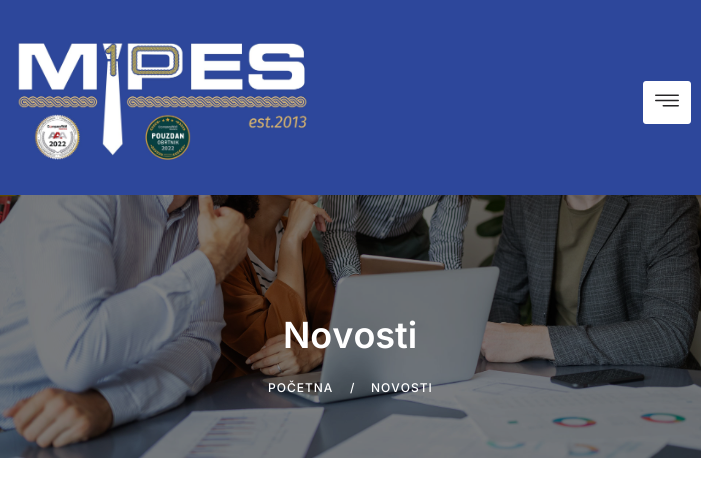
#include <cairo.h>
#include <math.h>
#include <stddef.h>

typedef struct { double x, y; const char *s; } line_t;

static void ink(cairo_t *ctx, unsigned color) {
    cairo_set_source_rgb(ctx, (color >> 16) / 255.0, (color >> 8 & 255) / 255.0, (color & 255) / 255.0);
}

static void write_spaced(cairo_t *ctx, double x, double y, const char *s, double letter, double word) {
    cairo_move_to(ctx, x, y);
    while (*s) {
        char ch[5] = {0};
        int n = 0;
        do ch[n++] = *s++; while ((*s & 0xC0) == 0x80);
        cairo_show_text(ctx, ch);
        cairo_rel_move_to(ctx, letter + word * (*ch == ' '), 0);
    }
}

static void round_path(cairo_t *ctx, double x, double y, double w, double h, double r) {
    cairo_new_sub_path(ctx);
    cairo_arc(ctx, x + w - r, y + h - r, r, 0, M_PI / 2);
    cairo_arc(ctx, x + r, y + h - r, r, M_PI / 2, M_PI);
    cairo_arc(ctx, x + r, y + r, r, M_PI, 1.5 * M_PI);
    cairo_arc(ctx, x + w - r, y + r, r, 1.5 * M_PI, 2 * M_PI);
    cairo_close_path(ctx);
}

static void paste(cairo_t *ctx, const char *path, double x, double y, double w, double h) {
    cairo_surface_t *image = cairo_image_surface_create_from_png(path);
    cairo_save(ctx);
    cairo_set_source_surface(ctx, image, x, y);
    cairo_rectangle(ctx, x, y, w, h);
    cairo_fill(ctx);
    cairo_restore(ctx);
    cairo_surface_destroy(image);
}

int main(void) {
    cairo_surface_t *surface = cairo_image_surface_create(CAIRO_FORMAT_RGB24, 701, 483);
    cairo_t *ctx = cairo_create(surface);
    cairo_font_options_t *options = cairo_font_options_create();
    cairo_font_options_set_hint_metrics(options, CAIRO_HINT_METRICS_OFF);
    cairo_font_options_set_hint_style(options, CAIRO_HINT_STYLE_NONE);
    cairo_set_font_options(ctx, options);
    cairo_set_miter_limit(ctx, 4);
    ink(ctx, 0xFFFFFF);
    cairo_paint(ctx);
    ink(ctx, 0x2D479B);
    cairo_rectangle(ctx, 0, 0, 701, 195);
    cairo_fill(ctx);
    paste(ctx, "media/1.png", 17, 42, 291, 119);
    ink(ctx, 0xFFFFFF);
    round_path(ctx, 643, 81, 48, 43, 3);
    cairo_fill(ctx);
    paste(ctx, "media/2.png", 655, 94, 24, 13);
    paste(ctx, "media/3.png", 0, 195, 701, 263);
    cairo_select_font_face(ctx, "Inter SemiBold", CAIRO_FONT_SLANT_NORMAL, CAIRO_FONT_WEIGHT_NORMAL);
    cairo_set_font_size(ctx, 36);
    cairo_move_to(ctx, 283, 348);
    cairo_show_text(ctx, "Novosti");
    cairo_select_font_face(ctx, "Inter Medium", CAIRO_FONT_SLANT_NORMAL, CAIRO_FONT_WEIGHT_NORMAL);
    cairo_set_font_size(ctx, 12);
    {
        static const line_t items[] = {
            {268, 392, "POČETNA"},
            {350, 392, "/"},
            {371, 392, "NOVOSTI"},
        };
        for (size_t i = 0; i < sizeof items / sizeof *items; i++) {
            write_spaced(ctx, items[i].x, items[i].y, items[i].s, 1, 0);
        }
    }
    cairo_surface_write_to_png(surface, "image.png");
    cairo_font_options_destroy(options);
    cairo_destroy(ctx);
    cairo_surface_destroy(surface);
    return 0;
}
